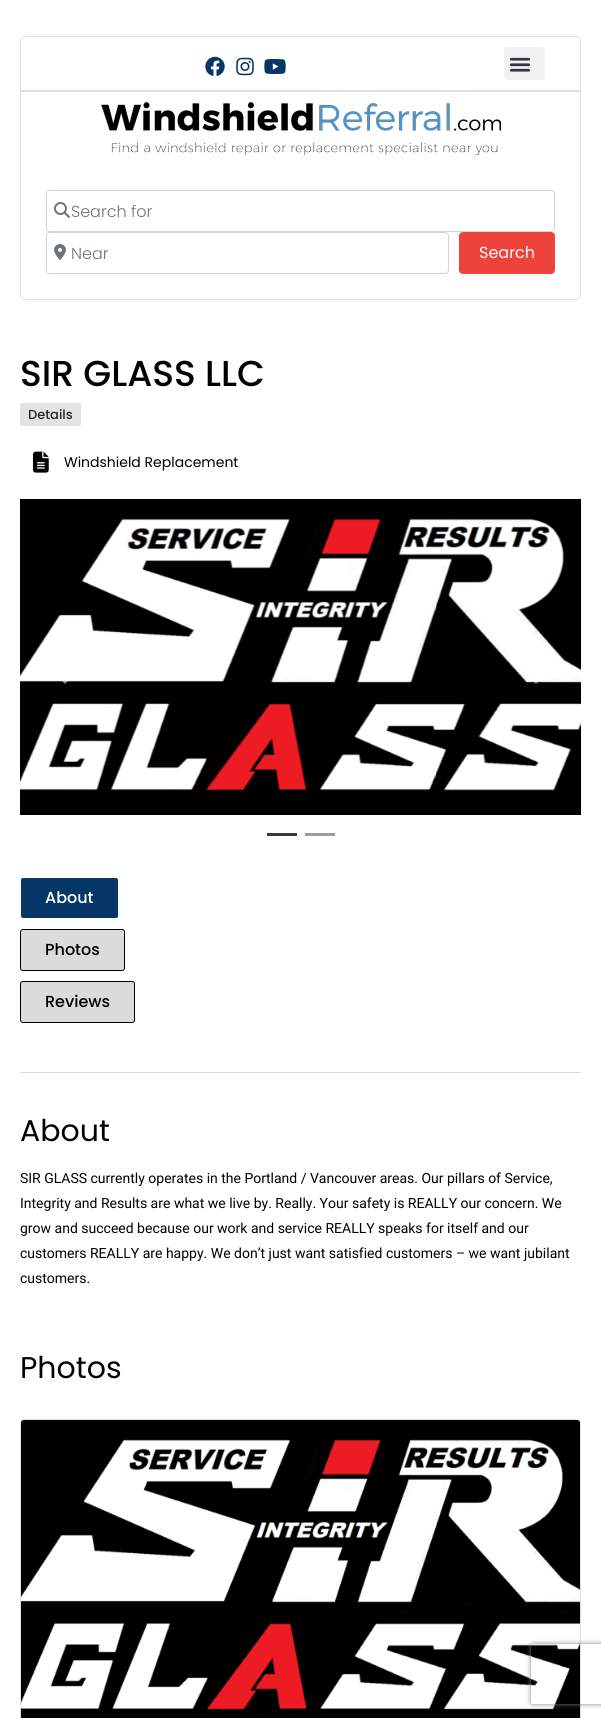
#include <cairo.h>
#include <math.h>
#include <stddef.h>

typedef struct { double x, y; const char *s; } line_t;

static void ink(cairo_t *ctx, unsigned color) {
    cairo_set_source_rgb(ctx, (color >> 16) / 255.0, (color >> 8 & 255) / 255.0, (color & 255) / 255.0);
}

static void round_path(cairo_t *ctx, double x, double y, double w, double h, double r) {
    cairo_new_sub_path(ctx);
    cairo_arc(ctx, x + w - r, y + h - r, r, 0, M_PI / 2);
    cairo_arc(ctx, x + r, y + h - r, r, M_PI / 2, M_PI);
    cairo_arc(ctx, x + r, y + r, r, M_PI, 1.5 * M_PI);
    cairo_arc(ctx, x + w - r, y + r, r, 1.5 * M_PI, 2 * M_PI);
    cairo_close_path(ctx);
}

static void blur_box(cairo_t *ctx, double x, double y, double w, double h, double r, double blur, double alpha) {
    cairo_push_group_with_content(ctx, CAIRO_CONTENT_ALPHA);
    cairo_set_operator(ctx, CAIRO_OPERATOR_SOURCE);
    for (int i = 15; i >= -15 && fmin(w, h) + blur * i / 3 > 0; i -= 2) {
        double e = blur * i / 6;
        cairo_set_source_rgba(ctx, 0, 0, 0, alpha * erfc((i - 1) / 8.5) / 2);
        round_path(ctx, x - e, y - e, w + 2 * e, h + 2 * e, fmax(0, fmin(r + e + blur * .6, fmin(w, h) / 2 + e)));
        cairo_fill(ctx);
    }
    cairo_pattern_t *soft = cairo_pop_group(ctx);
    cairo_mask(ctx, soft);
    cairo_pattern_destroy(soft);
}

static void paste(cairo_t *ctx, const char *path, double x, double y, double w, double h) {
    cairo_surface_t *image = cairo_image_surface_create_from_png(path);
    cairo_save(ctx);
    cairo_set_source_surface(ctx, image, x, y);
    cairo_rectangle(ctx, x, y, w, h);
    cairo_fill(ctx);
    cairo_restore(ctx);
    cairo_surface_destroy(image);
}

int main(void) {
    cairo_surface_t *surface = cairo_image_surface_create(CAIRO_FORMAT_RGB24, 601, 1718);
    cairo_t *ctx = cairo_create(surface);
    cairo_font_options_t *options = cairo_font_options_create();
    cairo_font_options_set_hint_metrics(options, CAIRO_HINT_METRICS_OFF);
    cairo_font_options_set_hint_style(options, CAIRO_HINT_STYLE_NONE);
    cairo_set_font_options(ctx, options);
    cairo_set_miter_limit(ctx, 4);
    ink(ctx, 0xFFFFFF);
    cairo_paint(ctx);
    cairo_new_path(ctx);
    cairo_move_to(ctx, 25, 36.5);
    cairo_line_to(ctx, 576, 36.5);
    cairo_curve_to(ctx, 578.5, 36.5, 580.5, 38.5, 580.5, 41);
    cairo_line_to(ctx, 580.5, 90.5);
    cairo_line_to(ctx, 20.5, 90.5);
    cairo_line_to(ctx, 20.5, 41);
    cairo_curve_to(ctx, 20.5, 38.5, 22.5, 36.5, 25, 36.5);
    cairo_close_path(ctx);
    ink(ctx, 0xE0E0E0);
    cairo_set_line_width(ctx, 1);
    cairo_stroke(ctx);
    paste(ctx, "media/1.png", 205, 56, 20, 20);
    paste(ctx, "media/2.png", 236, 57, 18, 19);
    paste(ctx, "media/3.png", 264, 59, 22, 15);
    ink(ctx, 0xF2F2F2);
    round_path(ctx, 504, 47, 41, 33, 3);
    cairo_fill(ctx);
    paste(ctx, "media/4.png", 509, 57, 22, 15);
    cairo_new_path(ctx);
    cairo_move_to(ctx, 20.5, 91.5);
    cairo_line_to(ctx, 580.5, 91.5);
    cairo_line_to(ctx, 580.5, 295);
    cairo_curve_to(ctx, 580.5, 297.5, 578.5, 299.5, 576, 299.5);
    cairo_line_to(ctx, 25, 299.5);
    cairo_curve_to(ctx, 22.5, 299.5, 20.5, 297.5, 20.5, 295);
    cairo_close_path(ctx);
    ink(ctx, 0xE0E0E0);
    cairo_stroke(ctx);
    paste(ctx, "media/5.png", 101, 102, 400, 53);
    round_path(ctx, 46.5, 190.5, 508, 41, 3.5);
    ink(ctx, 0xCED4DA);
    cairo_stroke(ctx);
    paste(ctx, "media/6.png", 54, 202, 16, 16);
    cairo_select_font_face(ctx, "Poppins Light", CAIRO_FONT_SLANT_NORMAL, CAIRO_FONT_WEIGHT_NORMAL);
    cairo_set_font_size(ctx, 16);
    ink(ctx, 0x6C757D);
    cairo_move_to(ctx, 71, 217);
    cairo_show_text(ctx, "Search for");
    round_path(ctx, 46.5, 232.5, 402, 41, 3.5);
    ink(ctx, 0xCED4DA);
    cairo_stroke(ctx);
    paste(ctx, "media/7.png", 54, 244, 12, 16);
    ink(ctx, 0x6C757D);
    cairo_move_to(ctx, 71, 259);
    cairo_show_text(ctx, "Near");
    ink(ctx, 0xEE433B);
    round_path(ctx, 459.5, 232.5, 95, 41, 3.5);
    cairo_fill_preserve(ctx);
    cairo_stroke(ctx);
    cairo_select_font_face(ctx, "Poppins", CAIRO_FONT_SLANT_NORMAL, CAIRO_FONT_WEIGHT_NORMAL);
    ink(ctx, 0xFFFFFF);
    cairo_move_to(ctx, 479, 258);
    cairo_show_text(ctx, "Search");
    cairo_select_font_face(ctx, "Poppins Medium", CAIRO_FONT_SLANT_NORMAL, CAIRO_FONT_WEIGHT_NORMAL);
    cairo_set_font_size(ctx, 36);
    ink(ctx, 0x000000);
    cairo_move_to(ctx, 20, 386);
    cairo_show_text(ctx, "SIR GLASS LLC");
    ink(ctx, 0xE3E3E3);
    round_path(ctx, 20, 403, 61, 23, 2);
    cairo_fill(ctx);
    cairo_set_font_size(ctx, 13);
    ink(ctx, 0x252525);
    cairo_move_to(ctx, 28, 419);
    cairo_show_text(ctx, "Details");
    paste(ctx, "media/8.png", 33, 451, 16, 22);
    cairo_select_font_face(ctx, "Poppins", CAIRO_FONT_SLANT_NORMAL, CAIRO_FONT_WEIGHT_NORMAL);
    cairo_set_font_size(ctx, 14);
    ink(ctx, 0x000000);
    cairo_move_to(ctx, 64, 467);
    cairo_show_text(ctx, "Windshield Replacement");
    paste(ctx, "media/9.png", 20, 499, 561, 316);
    cairo_set_source_rgba(ctx, 1, 1, 1, 0.5);
    cairo_new_path(ctx);
    cairo_move_to(ctx, 65, 664);
    cairo_line_to(ctx, 55, 674);
    cairo_line_to(ctx, 65, 684);
    cairo_line_to(ctx, 69, 680);
    cairo_line_to(ctx, 62.5, 674);
    cairo_line_to(ctx, 69, 668);
    cairo_close_path(ctx);
    cairo_fill(ctx);
    cairo_new_path(ctx);
    cairo_move_to(ctx, 536, 664);
    cairo_line_to(ctx, 532, 668);
    cairo_line_to(ctx, 538.5, 674);
    cairo_line_to(ctx, 532, 680);
    cairo_line_to(ctx, 536, 684);
    cairo_line_to(ctx, 546, 674);
    cairo_close_path(ctx);
    cairo_fill(ctx);
    ink(ctx, 0x343A40);
    cairo_rectangle(ctx, 267, 833, 30, 3);
    cairo_fill(ctx);
    ink(ctx, 0x9A9DA0);
    cairo_rectangle(ctx, 305, 833, 30, 3);
    cairo_fill(ctx);
    ink(ctx, 0x073767);
    round_path(ctx, 20.5, 877.5, 98, 41, 2.5);
    cairo_fill_preserve(ctx);
    ink(ctx, 0xFFFFFF);
    cairo_stroke(ctx);
    cairo_select_font_face(ctx, "Poppins Medium", CAIRO_FONT_SLANT_NORMAL, CAIRO_FONT_WEIGHT_NORMAL);
    cairo_set_font_size(ctx, 16);
    cairo_move_to(ctx, 45, 903);
    cairo_show_text(ctx, "About");
    ink(ctx, 0xDBDBDB);
    round_path(ctx, 20.5, 929.5, 104, 41, 2.5);
    cairo_fill_preserve(ctx);
    ink(ctx, 0x000000);
    cairo_stroke(ctx);
    cairo_move_to(ctx, 45, 955);
    cairo_show_text(ctx, "Photos");
    ink(ctx, 0xDBDBDB);
    round_path(ctx, 20.5, 981.5, 114, 41, 2.5);
    cairo_fill_preserve(ctx);
    ink(ctx, 0x000000);
    cairo_stroke(ctx);
    cairo_move_to(ctx, 45, 1007);
    cairo_show_text(ctx, "Reviews");
    ink(ctx, 0xDBDBDB);
    cairo_rectangle(ctx, 20, 1072, 561, 1);
    cairo_fill(ctx);
    cairo_select_font_face(ctx, "Poppins", CAIRO_FONT_SLANT_NORMAL, CAIRO_FONT_WEIGHT_NORMAL);
    cairo_set_font_size(ctx, 30);
    ink(ctx, 0x000000);
    cairo_move_to(ctx, 20, 1141);
    cairo_show_text(ctx, "About");
    cairo_select_font_face(ctx, "Roboto", CAIRO_FONT_SLANT_NORMAL, CAIRO_FONT_WEIGHT_NORMAL);
    cairo_set_font_size(ctx, 14);
    {
        static const line_t items[] = {
            {20, 1183, "SIR GLASS currently operates in the Portland / Vancouver areas. Our pillars of Service,"},
            {20, 1208, "Integrity and Results are what we live by. Really. Your safety is REALLY our concern. We"},
            {20, 1233, "grow and succeed because our work and service REALLY speaks for itself and our"},
            {20, 1258, "customers REALLY are happy. We don’t just want satisfied customers – we want jubilant"},
            {20, 1283, "customers."},
        };
        for (size_t i = 0; i < sizeof items / sizeof *items; i++) {
            cairo_move_to(ctx, items[i].x, items[i].y);
            cairo_show_text(ctx, items[i].s);
        }
    }
    cairo_select_font_face(ctx, "Poppins", CAIRO_FONT_SLANT_NORMAL, CAIRO_FONT_WEIGHT_NORMAL);
    cairo_set_font_size(ctx, 30);
    cairo_move_to(ctx, 20, 1378);
    cairo_show_text(ctx, "Photos");
    round_path(ctx, 20.5, 1419.5, 560, 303, 3.5);
    ink(ctx, 0xDFDFDF);
    cairo_stroke(ctx);
    paste(ctx, "media/10.png", 21, 1420, 559, 298);
    cairo_save(ctx);
    cairo_set_fill_rule(ctx, CAIRO_FILL_RULE_EVEN_ODD);
    cairo_new_path(ctx);
    cairo_move_to(ctx, 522, 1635);
    cairo_line_to(ctx, 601, 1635);
    cairo_line_to(ctx, 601, 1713);
    cairo_line_to(ctx, 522, 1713);
    cairo_close_path(ctx);
    cairo_move_to(ctx, 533, 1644);
    cairo_line_to(ctx, 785, 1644);
    cairo_curve_to(ctx, 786, 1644, 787, 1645, 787, 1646);
    cairo_line_to(ctx, 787, 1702);
    cairo_curve_to(ctx, 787, 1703, 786, 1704, 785, 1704);
    cairo_line_to(ctx, 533, 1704);
    cairo_curve_to(ctx, 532, 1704, 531, 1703, 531, 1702);
    cairo_line_to(ctx, 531, 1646);
    cairo_curve_to(ctx, 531, 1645, 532, 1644, 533, 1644);
    cairo_close_path(ctx);
    cairo_clip(ctx);
    ink(ctx, 0x808080);
    blur_box(ctx, 531, 1644, 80, 60, 2, 2.5, 1);
    cairo_restore(ctx);
    cairo_surface_write_to_png(surface, "image.png");
    cairo_font_options_destroy(options);
    cairo_destroy(ctx);
    cairo_surface_destroy(surface);
    return 0;
}
